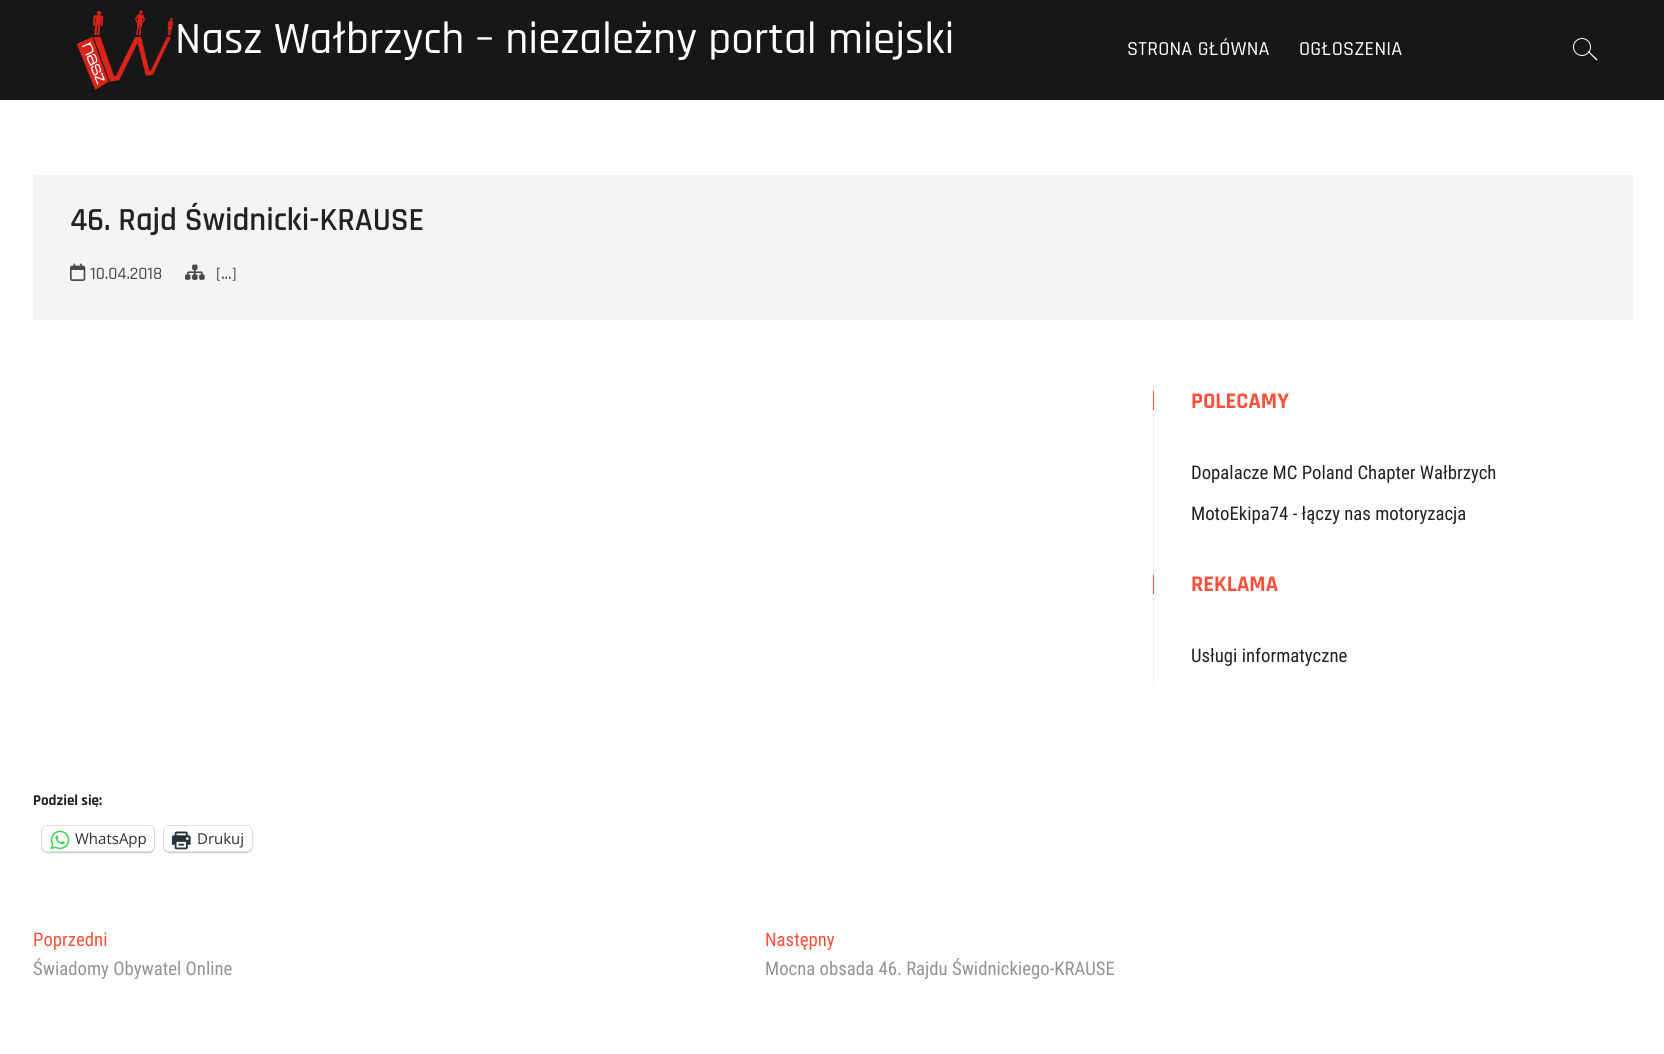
#include <cairo.h>
#include <math.h>
#include <stddef.h>


static void ink(cairo_t *ctx, unsigned color) {
    cairo_set_source_rgb(ctx, (color >> 16) / 255.0, (color >> 8 & 255) / 255.0, (color & 255) / 255.0);
}

static void write_spaced(cairo_t *ctx, double x, double y, const char *s, double letter, double word) {
    cairo_move_to(ctx, x, y);
    while (*s) {
        char ch[5] = {0};
        int n = 0;
        do ch[n++] = *s++; while ((*s & 0xC0) == 0x80);
        cairo_show_text(ctx, ch);
        cairo_rel_move_to(ctx, letter + word * (*ch == ' '), 0);
    }
}

static void round_path(cairo_t *ctx, double x, double y, double w, double h, double r) {
    cairo_new_sub_path(ctx);
    cairo_arc(ctx, x + w - r, y + h - r, r, 0, M_PI / 2);
    cairo_arc(ctx, x + r, y + h - r, r, M_PI / 2, M_PI);
    cairo_arc(ctx, x + r, y + r, r, M_PI, 1.5 * M_PI);
    cairo_arc(ctx, x + w - r, y + r, r, 1.5 * M_PI, 2 * M_PI);
    cairo_close_path(ctx);
}

static void blur_box(cairo_t *ctx, double x, double y, double w, double h, double r, double blur, double alpha) {
    cairo_push_group_with_content(ctx, CAIRO_CONTENT_ALPHA);
    cairo_set_operator(ctx, CAIRO_OPERATOR_SOURCE);
    for (int i = 15; i >= -15 && fmin(w, h) + blur * i / 3 > 0; i -= 2) {
        double e = blur * i / 6;
        cairo_set_source_rgba(ctx, 0, 0, 0, alpha * erfc((i - 1) / 8.5) / 2);
        round_path(ctx, x - e, y - e, w + 2 * e, h + 2 * e, fmax(0, fmin(r + e + blur * .6, fmin(w, h) / 2 + e)));
        cairo_fill(ctx);
    }
    cairo_pattern_t *soft = cairo_pop_group(ctx);
    cairo_mask(ctx, soft);
    cairo_pattern_destroy(soft);
}

static void paste(cairo_t *ctx, const char *path, double x, double y, double w, double h) {
    cairo_surface_t *image = cairo_image_surface_create_from_png(path);
    cairo_save(ctx);
    cairo_set_source_surface(ctx, image, x, y);
    cairo_rectangle(ctx, x, y, w, h);
    cairo_fill(ctx);
    cairo_restore(ctx);
    cairo_surface_destroy(image);
}

int main(void) {
    cairo_surface_t *surface = cairo_image_surface_create(CAIRO_FORMAT_RGB24, 1664, 1054);
    cairo_t *ctx = cairo_create(surface);
    cairo_font_options_t *options = cairo_font_options_create();
    cairo_font_options_set_hint_metrics(options, CAIRO_HINT_METRICS_OFF);
    cairo_font_options_set_hint_style(options, CAIRO_HINT_STYLE_NONE);
    cairo_set_font_options(ctx, options);
    cairo_set_miter_limit(ctx, 4);
    ink(ctx, 0xFFFFFF);
    cairo_paint(ctx);
    ink(ctx, 0x171717);
    cairo_rectangle(ctx, 0, 0, 1664, 100);
    cairo_fill(ctx);
    paste(ctx, "media/1.png", 76, 10, 98, 80);
    cairo_select_font_face(ctx, "Rajdhani Medium", CAIRO_FONT_SLANT_NORMAL, CAIRO_FONT_WEIGHT_NORMAL);
    cairo_set_font_size(ctx, 45);
    ink(ctx, 0xFFFFFF);
    cairo_move_to(ctx, 175, 53);
    cairo_show_text(ctx, "Nasz Wałbrzych – niezależny portal miejski");
    cairo_set_font_size(ctx, 20);
    write_spaced(ctx, 1127, 55, "STRONA GŁÓWNA", 0.25, 0);
    write_spaced(ctx, 1299, 55, "OGŁOSZENIA", 0.25, 0);
    cairo_new_path(ctx);
    cairo_arc(ctx, 1582, 47, 8.5, 0, 2 * M_PI);
    cairo_set_line_width(ctx, 1);
    cairo_stroke(ctx);
    cairo_new_path(ctx);
    cairo_move_to(ctx, 1587.5, 51.5);
    cairo_line_to(ctx, 1588.5, 51);
    cairo_line_to(ctx, 1597.5, 59.5);
    cairo_line_to(ctx, 1596.5, 60.5);
    cairo_close_path(ctx);
    cairo_fill(ctx);
    ink(ctx, 0xF4F4F4);
    cairo_rectangle(ctx, 33, 175, 1600, 145);
    cairo_fill(ctx);
    cairo_select_font_face(ctx, "Rajdhani SemiBold", CAIRO_FONT_SLANT_NORMAL, CAIRO_FONT_WEIGHT_NORMAL);
    cairo_set_font_size(ctx, 32.5);
    ink(ctx, 0x222222);
    cairo_move_to(ctx, 70, 230);
    cairo_show_text(ctx, "46. Rajd Świdnicki-KRAUSE");
    paste(ctx, "media/2.png", 70, 263, 16, 18);
    cairo_select_font_face(ctx, "Rajdhani Medium", CAIRO_FONT_SLANT_NORMAL, CAIRO_FONT_WEIGHT_NORMAL);
    cairo_set_font_size(ctx, 17.5);
    ink(ctx, 0x484848);
    cairo_move_to(ctx, 90, 279);
    cairo_show_text(ctx, "10.04.2018");
    paste(ctx, "media/3.png", 185, 264, 20, 16);
    cairo_move_to(ctx, 216, 279);
    cairo_show_text(ctx, "[...]");
    ink(ctx, 0xEEEEEE);
    cairo_rectangle(ctx, 1153, 383, 1, 301);
    cairo_fill(ctx);
    ink(ctx, 0xFD513B);
    cairo_rectangle(ctx, 1153, 391, 1, 19);
    cairo_fill(ctx);
    cairo_select_font_face(ctx, "Rajdhani", CAIRO_FONT_SLANT_NORMAL, CAIRO_FONT_WEIGHT_BOLD);
    cairo_set_font_size(ctx, 22.5);
    cairo_move_to(ctx, 1191, 408);
    cairo_show_text(ctx, "POLECAMY");
    cairo_select_font_face(ctx, "Roboto Condensed", CAIRO_FONT_SLANT_NORMAL, CAIRO_FONT_WEIGHT_NORMAL);
    cairo_set_font_size(ctx, 18.75);
    ink(ctx, 0x222222);
    cairo_move_to(ctx, 1191, 479);
    cairo_show_text(ctx, "Dopalacze MC Poland Chapter Wałbrzych");
    cairo_move_to(ctx, 1191, 520);
    cairo_show_text(ctx, "MotoEkipa74 - łączy nas motoryzacja");
    ink(ctx, 0xFD513B);
    cairo_rectangle(ctx, 1153, 575, 1, 19);
    cairo_fill(ctx);
    cairo_select_font_face(ctx, "Rajdhani", CAIRO_FONT_SLANT_NORMAL, CAIRO_FONT_WEIGHT_BOLD);
    cairo_set_font_size(ctx, 22.5);
    cairo_move_to(ctx, 1191, 591);
    cairo_show_text(ctx, "REKLAMA");
    cairo_select_font_face(ctx, "Roboto Condensed", CAIRO_FONT_SLANT_NORMAL, CAIRO_FONT_WEIGHT_NORMAL);
    cairo_set_font_size(ctx, 18.75);
    ink(ctx, 0x222222);
    cairo_move_to(ctx, 1191, 662);
    cairo_show_text(ctx, "Usługi informatyczne");
    cairo_select_font_face(ctx, "Rajdhani", CAIRO_FONT_SLANT_NORMAL, CAIRO_FONT_WEIGHT_BOLD);
    cairo_set_font_size(ctx, 15);
    cairo_move_to(ctx, 33, 805);
    cairo_show_text(ctx, "Podziel się:");
    round_path(ctx, 41.5, 825.5, 113, 27, 5.5);
    ink(ctx, 0xE0E0E0);
    cairo_stroke(ctx);
    ink(ctx, 0x000000);
    blur_box(ctx, 43, 828, 111, 25, 5, 1, 0.12);
    ink(ctx, 0xFFFFFF);
    round_path(ctx, 43, 826, 111, 25, 5);
    cairo_fill(ctx);
    paste(ctx, "media/4.png", 50, 830, 20, 20);
    cairo_select_font_face(ctx, "Open Sans", CAIRO_FONT_SLANT_NORMAL, CAIRO_FONT_WEIGHT_NORMAL);
    ink(ctx, 0x2C3338);
    cairo_move_to(ctx, 75, 844);
    cairo_show_text(ctx, "WhatsApp");
    round_path(ctx, 163.5, 825.5, 89, 27, 5.5);
    ink(ctx, 0xE0E0E0);
    cairo_stroke(ctx);
    ink(ctx, 0x000000);
    blur_box(ctx, 164, 828, 87, 25, 5, 1, 0.12);
    ink(ctx, 0xFFFFFF);
    round_path(ctx, 164, 826, 87, 25, 5);
    cairo_fill(ctx);
    paste(ctx, "media/5.png", 171, 831, 20, 19);
    ink(ctx, 0x2C3338);
    cairo_move_to(ctx, 197, 844);
    cairo_show_text(ctx, "Drukuj");
    cairo_select_font_face(ctx, "Roboto Condensed", CAIRO_FONT_SLANT_NORMAL, CAIRO_FONT_WEIGHT_NORMAL);
    cairo_set_font_size(ctx, 18.75);
    ink(ctx, 0xFD513B);
    cairo_move_to(ctx, 33, 946);
    cairo_show_text(ctx, "Poprzedni");
    ink(ctx, 0x949494);
    cairo_move_to(ctx, 33, 975);
    cairo_show_text(ctx, "Świadomy Obywatel Online");
    ink(ctx, 0xFD513B);
    cairo_move_to(ctx, 765, 946);
    cairo_show_text(ctx, "Następny");
    ink(ctx, 0x949494);
    cairo_move_to(ctx, 765, 975);
    cairo_show_text(ctx, "Mocna obsada 46. Rajdu Świdnickiego-KRAUSE");
    cairo_surface_write_to_png(surface, "image.png");
    cairo_font_options_destroy(options);
    cairo_destroy(ctx);
    cairo_surface_destroy(surface);
    return 0;
}
